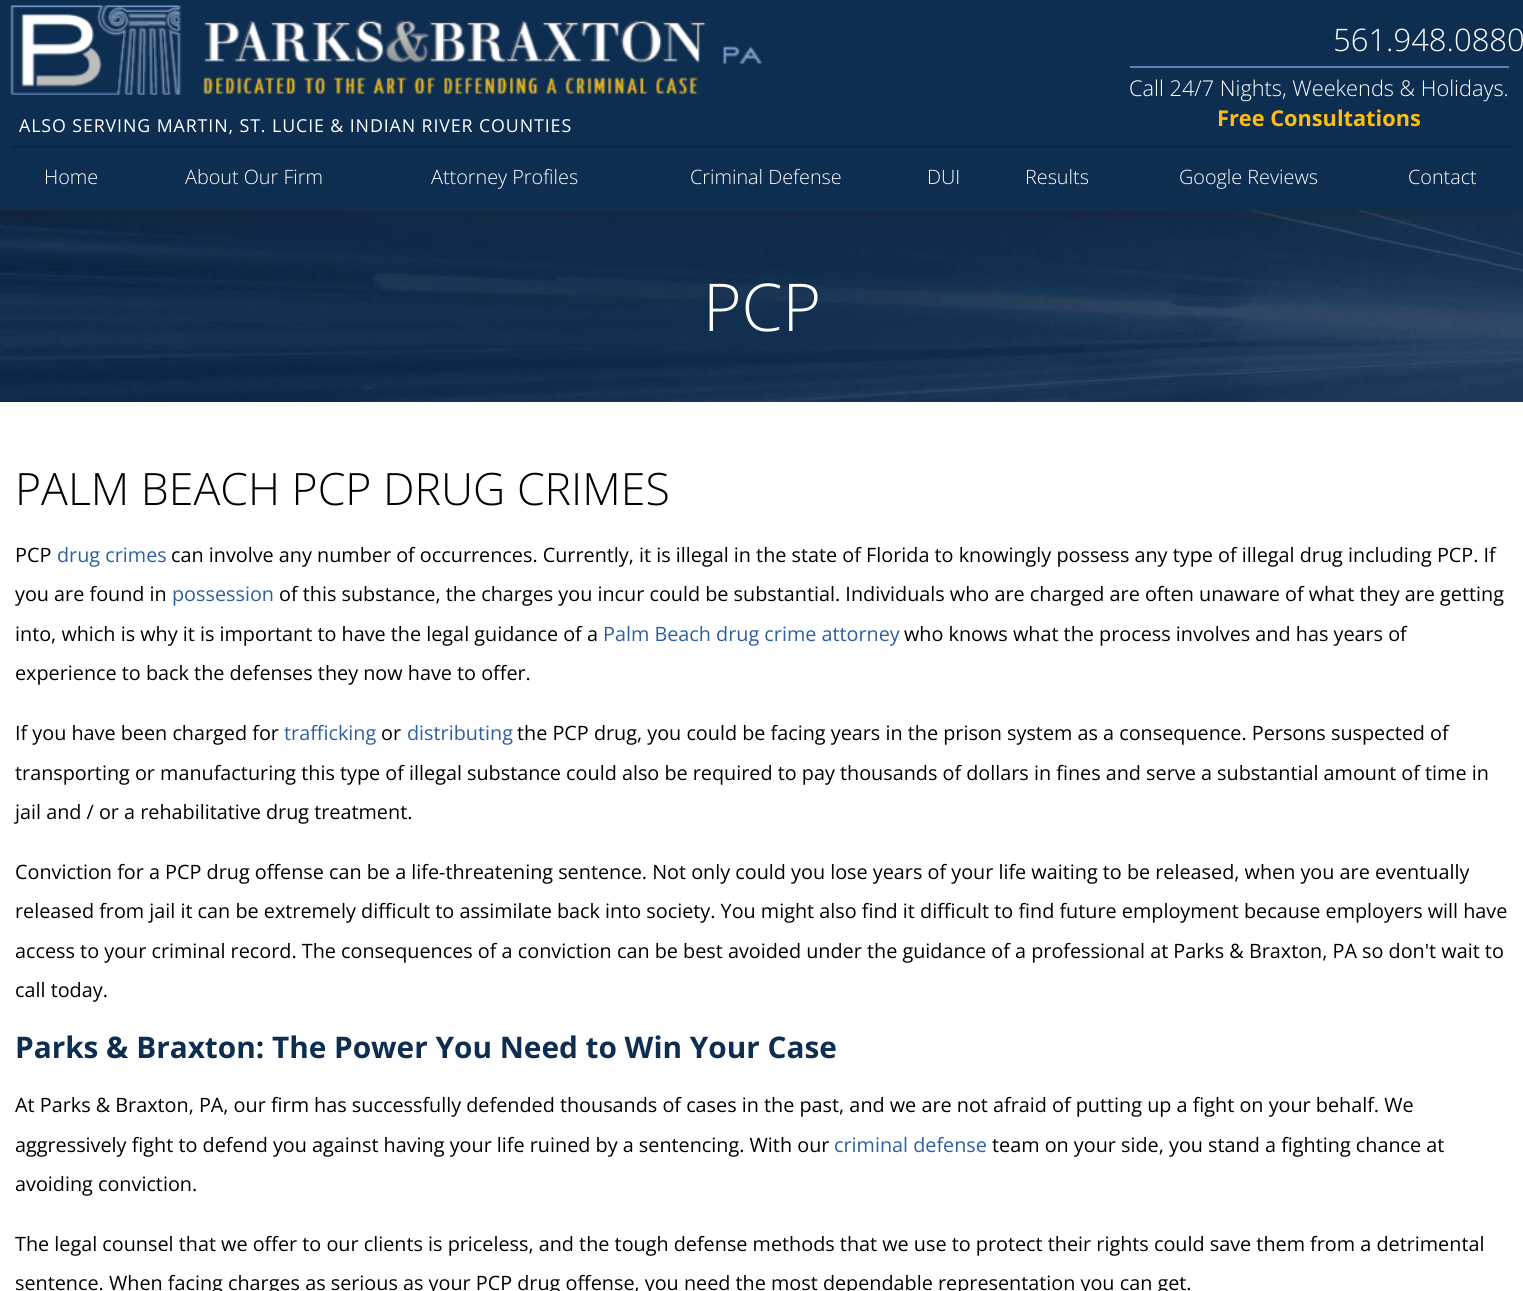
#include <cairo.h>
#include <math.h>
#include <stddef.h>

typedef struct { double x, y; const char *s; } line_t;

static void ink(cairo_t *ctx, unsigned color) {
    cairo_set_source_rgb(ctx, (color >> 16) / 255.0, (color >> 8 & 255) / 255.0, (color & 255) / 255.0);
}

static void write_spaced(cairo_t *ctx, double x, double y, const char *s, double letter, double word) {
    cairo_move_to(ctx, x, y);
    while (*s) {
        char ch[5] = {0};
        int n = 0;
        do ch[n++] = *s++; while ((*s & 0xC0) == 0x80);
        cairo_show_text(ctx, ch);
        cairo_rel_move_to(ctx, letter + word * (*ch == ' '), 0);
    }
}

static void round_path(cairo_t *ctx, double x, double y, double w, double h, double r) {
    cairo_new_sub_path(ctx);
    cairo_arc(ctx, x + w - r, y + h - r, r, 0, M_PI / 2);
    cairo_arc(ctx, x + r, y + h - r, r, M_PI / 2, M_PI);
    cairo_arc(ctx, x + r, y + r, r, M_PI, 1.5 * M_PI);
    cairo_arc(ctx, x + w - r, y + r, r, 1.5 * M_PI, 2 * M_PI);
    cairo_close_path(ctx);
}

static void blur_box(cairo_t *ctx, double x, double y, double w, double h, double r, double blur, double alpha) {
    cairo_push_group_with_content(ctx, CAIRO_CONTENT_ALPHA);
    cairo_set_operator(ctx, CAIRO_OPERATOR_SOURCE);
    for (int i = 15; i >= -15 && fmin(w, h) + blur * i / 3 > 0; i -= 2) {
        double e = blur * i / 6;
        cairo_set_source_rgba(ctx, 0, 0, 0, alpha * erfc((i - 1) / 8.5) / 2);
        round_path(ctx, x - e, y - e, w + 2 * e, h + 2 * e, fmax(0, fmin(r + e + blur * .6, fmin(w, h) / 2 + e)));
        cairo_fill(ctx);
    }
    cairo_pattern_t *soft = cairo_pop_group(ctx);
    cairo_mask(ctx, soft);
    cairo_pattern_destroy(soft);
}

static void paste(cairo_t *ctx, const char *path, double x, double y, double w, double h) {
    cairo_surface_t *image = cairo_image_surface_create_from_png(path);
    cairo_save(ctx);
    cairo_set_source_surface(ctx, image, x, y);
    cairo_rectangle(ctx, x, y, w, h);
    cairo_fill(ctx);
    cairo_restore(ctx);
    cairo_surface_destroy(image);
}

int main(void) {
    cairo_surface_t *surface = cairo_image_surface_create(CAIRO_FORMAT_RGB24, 1523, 1291);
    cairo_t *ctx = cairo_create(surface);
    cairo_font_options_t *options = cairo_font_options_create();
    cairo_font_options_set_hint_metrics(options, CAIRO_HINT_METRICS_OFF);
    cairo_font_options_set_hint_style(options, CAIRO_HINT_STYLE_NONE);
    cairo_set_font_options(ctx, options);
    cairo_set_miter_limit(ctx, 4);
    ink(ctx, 0xFFFFFF);
    cairo_paint(ctx);
    paste(ctx, "media/2.png", 0, 210, 1523, 192);
    ink(ctx, 0x231F20);
    blur_box(ctx, 0, 0, 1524, 210, 0, 7.5, 0.71);
    ink(ctx, 0x0E2E51);
    cairo_rectangle(ctx, 0, 0, 1523, 210);
    cairo_fill(ctx);
    paste(ctx, "media/1.png", 10, 5, 752, 90);
    cairo_select_font_face(ctx, "Open Sans", CAIRO_FONT_SLANT_NORMAL, CAIRO_FONT_WEIGHT_NORMAL);
    cairo_set_font_size(ctx, 17.8);
    ink(ctx, 0xFFFFFF);
    write_spaced(ctx, 19, 132, "ALSO SERVING MARTIN, ST. LUCIE & INDIAN RIVER COUNTIES", 0.9, 0);
    cairo_select_font_face(ctx, "Open Sans Light", CAIRO_FONT_SLANT_NORMAL, CAIRO_FONT_WEIGHT_NORMAL);
    cairo_set_font_size(ctx, 31);
    cairo_move_to(ctx, 1333, 51);
    cairo_show_text(ctx, "561.948.0880");
    ink(ctx, 0x5D83B6);
    cairo_rectangle(ctx, 1130, 66, 379, 2);
    cairo_fill(ctx);
    cairo_set_font_size(ctx, 21.75);
    ink(ctx, 0xFFFFFF);
    cairo_move_to(ctx, 1129, 96);
    cairo_show_text(ctx, "Call 24/7 Nights, Weekends & Holidays.");
    cairo_select_font_face(ctx, "Open Sans", CAIRO_FONT_SLANT_NORMAL, CAIRO_FONT_WEIGHT_BOLD);
    ink(ctx, 0xFEBE10);
    cairo_move_to(ctx, 1217, 126);
    cairo_show_text(ctx, "Free Consultations");
    ink(ctx, 0x0B2541);
    cairo_rectangle(ctx, 11, 146, 1503, 2);
    cairo_fill(ctx);
    cairo_select_font_face(ctx, "Open Sans Light", CAIRO_FONT_SLANT_NORMAL, CAIRO_FONT_WEIGHT_NORMAL);
    cairo_set_font_size(ctx, 19.8);
    ink(ctx, 0xFFFFFF);
    {
        static const line_t items[] = {
            {44, 184, "Home"},
            {185, 184, "About Our Firm"},
            {431, 184, "Attorney Profiles"},
            {690, 184, "Criminal Defense"},
            {927, 184, "DUI"},
            {1025, 184, "Results"},
            {1179, 184, "Google Reviews"},
            {1408, 184, "Contact"},
        };
        for (size_t i = 0; i < sizeof items / sizeof *items; i++) {
            cairo_move_to(ctx, items[i].x, items[i].y);
            cairo_show_text(ctx, items[i].s);
        }
    }
    cairo_set_font_size(ctx, 66);
    cairo_move_to(ctx, 703, 331);
    cairo_show_text(ctx, "PCP");
    cairo_set_font_size(ctx, 44.6);
    ink(ctx, 0x000000);
    cairo_move_to(ctx, 15, 505);
    cairo_show_text(ctx, "PALM BEACH PCP DRUG CRIMES");
    cairo_select_font_face(ctx, "Open Sans", CAIRO_FONT_SLANT_NORMAL, CAIRO_FONT_WEIGHT_NORMAL);
    cairo_set_font_size(ctx, 19.8);
    cairo_move_to(ctx, 15, 562);
    cairo_show_text(ctx, "PCP");
    ink(ctx, 0x2D5FA1);
    cairo_move_to(ctx, 57, 562);
    cairo_show_text(ctx, "drug crimes");
    ink(ctx, 0x000000);
    cairo_move_to(ctx, 171, 562);
    cairo_show_text(ctx, "can involve any number of occurrences. Currently, it is illegal in the state of Florida to knowingly possess any type of illegal drug including PCP. If");
    cairo_move_to(ctx, 15, 601);
    cairo_show_text(ctx, "you are found in");
    ink(ctx, 0x2D5FA1);
    cairo_move_to(ctx, 172, 601);
    cairo_show_text(ctx, "possession");
    ink(ctx, 0x000000);
    cairo_move_to(ctx, 279, 601);
    cairo_show_text(ctx, "of this substance, the charges you incur could be substantial. Individuals who are charged are often unaware of what they are getting");
    cairo_move_to(ctx, 15, 641);
    cairo_show_text(ctx, "into, which is why it is important to have the legal guidance of a");
    ink(ctx, 0x2D5FA1);
    cairo_move_to(ctx, 603, 641);
    cairo_show_text(ctx, "Palm Beach drug crime attorney");
    ink(ctx, 0x000000);
    {
        static const line_t items[] = {
            {904, 641, "who knows what the process involves and has years of"},
            {15, 680, "experience to back the defenses they now have to offer."},
            {15, 740, "If you have been charged for"},
        };
        for (size_t i = 0; i < sizeof items / sizeof *items; i++) {
            cairo_move_to(ctx, items[i].x, items[i].y);
            cairo_show_text(ctx, items[i].s);
        }
    }
    ink(ctx, 0x2D5FA1);
    cairo_move_to(ctx, 284, 740);
    cairo_show_text(ctx, "trafficking");
    ink(ctx, 0x000000);
    cairo_move_to(ctx, 381, 740);
    cairo_show_text(ctx, "or");
    ink(ctx, 0x2D5FA1);
    cairo_move_to(ctx, 407, 740);
    cairo_show_text(ctx, "distributing");
    ink(ctx, 0x000000);
    {
        static const line_t items[] = {
            {517, 740, "the PCP drug, you could be facing years in the prison system as a consequence. Persons suspected of"},
            {15, 780, "transporting or manufacturing this type of illegal substance could also be required to pay thousands of dollars in fines and serve a substantial amount of time in"},
            {15, 819, "jail and / or a rehabilitative drug treatment."},
            {15, 879, "Conviction for a PCP drug offense can be a life-threatening sentence. Not only could you lose years of your life waiting to be released, when you are eventually"},
            {15, 918, "released from jail it can be extremely difficult to assimilate back into society. You might also find it difficult to find future employment because employers will have"},
            {15, 958, "access to your criminal record. The consequences of a conviction can be best avoided under the guidance of a professional at Parks & Braxton, PA so don't wait to"},
            {15, 997, "call today."},
        };
        for (size_t i = 0; i < sizeof items / sizeof *items; i++) {
            cairo_move_to(ctx, items[i].x, items[i].y);
            cairo_show_text(ctx, items[i].s);
        }
    }
    cairo_select_font_face(ctx, "Open Sans", CAIRO_FONT_SLANT_NORMAL, CAIRO_FONT_WEIGHT_BOLD);
    cairo_set_font_size(ctx, 29.75);
    ink(ctx, 0x0E2E51);
    cairo_move_to(ctx, 15, 1058);
    cairo_show_text(ctx, "Parks & Braxton: The Power You Need to Win Your Case");
    cairo_select_font_face(ctx, "Open Sans", CAIRO_FONT_SLANT_NORMAL, CAIRO_FONT_WEIGHT_NORMAL);
    cairo_set_font_size(ctx, 19.8);
    ink(ctx, 0x000000);
    cairo_move_to(ctx, 15, 1112);
    cairo_show_text(ctx, "At Parks & Braxton, PA, our firm has successfully defended thousands of cases in the past, and we are not afraid of putting up a fight on your behalf. We");
    cairo_move_to(ctx, 15, 1152);
    cairo_show_text(ctx, "aggressively fight to defend you against having your life ruined by a sentencing. With our");
    ink(ctx, 0x2D5FA1);
    cairo_move_to(ctx, 834, 1152);
    cairo_show_text(ctx, "criminal defense");
    ink(ctx, 0x000000);
    {
        static const line_t items[] = {
            {992, 1152, "team on your side, you stand a fighting chance at"},
            {15, 1191, "avoiding conviction."},
            {15, 1251, "The legal counsel that we offer to our clients is priceless, and the tough defense methods that we use to protect their rights could save them from a detrimental"},
            {15, 1290, "sentence. When facing charges as serious as your PCP drug offense, you need the most dependable representation you can get."},
        };
        for (size_t i = 0; i < sizeof items / sizeof *items; i++) {
            cairo_move_to(ctx, items[i].x, items[i].y);
            cairo_show_text(ctx, items[i].s);
        }
    }
    cairo_surface_write_to_png(surface, "image.png");
    cairo_font_options_destroy(options);
    cairo_destroy(ctx);
    cairo_surface_destroy(surface);
    return 0;
}
